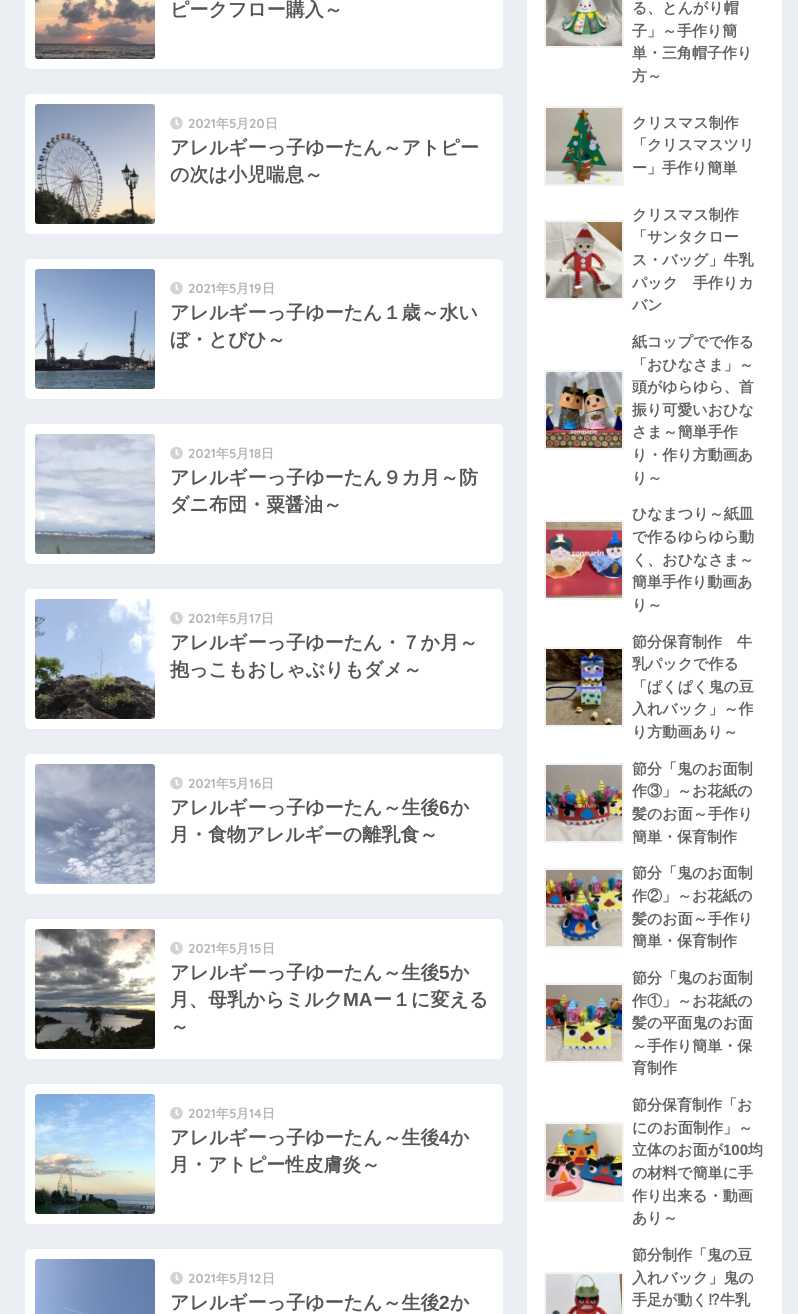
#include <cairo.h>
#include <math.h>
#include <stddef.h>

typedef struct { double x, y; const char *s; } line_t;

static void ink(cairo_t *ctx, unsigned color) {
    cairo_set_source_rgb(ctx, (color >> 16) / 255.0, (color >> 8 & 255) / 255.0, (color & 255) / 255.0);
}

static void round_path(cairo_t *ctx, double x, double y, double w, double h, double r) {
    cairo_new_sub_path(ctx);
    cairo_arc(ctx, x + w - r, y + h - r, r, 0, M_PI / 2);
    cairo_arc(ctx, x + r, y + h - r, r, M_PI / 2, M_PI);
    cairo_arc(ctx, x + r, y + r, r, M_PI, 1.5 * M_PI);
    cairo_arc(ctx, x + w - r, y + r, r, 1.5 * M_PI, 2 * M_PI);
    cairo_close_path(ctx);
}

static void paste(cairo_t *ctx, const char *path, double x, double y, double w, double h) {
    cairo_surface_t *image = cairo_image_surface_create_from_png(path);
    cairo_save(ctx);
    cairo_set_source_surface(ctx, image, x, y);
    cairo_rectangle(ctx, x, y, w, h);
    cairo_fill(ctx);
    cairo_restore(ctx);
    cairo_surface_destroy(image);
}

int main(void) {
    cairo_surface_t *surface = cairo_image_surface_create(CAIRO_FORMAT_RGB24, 798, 1314);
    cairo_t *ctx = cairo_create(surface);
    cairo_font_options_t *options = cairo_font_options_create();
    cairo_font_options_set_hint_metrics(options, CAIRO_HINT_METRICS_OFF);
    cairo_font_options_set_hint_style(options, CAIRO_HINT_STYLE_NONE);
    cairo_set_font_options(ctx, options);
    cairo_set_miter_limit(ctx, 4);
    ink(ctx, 0xEAEDF2);
    cairo_paint(ctx);
    ink(ctx, 0xFFFFFF);
    round_path(ctx, 25, -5, 478, 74, 5);
    cairo_fill(ctx);
    paste(ctx, "media/1.png", 35, 0, 120, 59);
    cairo_select_font_face(ctx, "WenQuanYi Zen Hei", CAIRO_FONT_SLANT_NORMAL, CAIRO_FONT_WEIGHT_BOLD);
    cairo_set_font_size(ctx, 19);
    ink(ctx, 0x555555);
    cairo_move_to(ctx, 170, 16);
    cairo_show_text(ctx, "ピークフロー購入～");
    ink(ctx, 0xFFFFFF);
    round_path(ctx, 25, 94, 478, 140, 5);
    cairo_fill(ctx);
    paste(ctx, "media/2.png", 35, 104, 120, 120);
    paste(ctx, "media/3.png", 170, 116, 13, 14);
    cairo_select_font_face(ctx, "Quicksand", CAIRO_FONT_SLANT_NORMAL, CAIRO_FONT_WEIGHT_BOLD);
    cairo_set_font_size(ctx, 13);
    ink(ctx, 0xB5B5B5);
    cairo_move_to(ctx, 188, 128);
    cairo_show_text(ctx, "2021");
    cairo_select_font_face(ctx, "WenQuanYi Zen Hei", CAIRO_FONT_SLANT_NORMAL, CAIRO_FONT_WEIGHT_BOLD);
    cairo_move_to(ctx, 216, 128);
    cairo_show_text(ctx, "年");
    cairo_select_font_face(ctx, "Quicksand", CAIRO_FONT_SLANT_NORMAL, CAIRO_FONT_WEIGHT_BOLD);
    cairo_move_to(ctx, 229, 128);
    cairo_show_text(ctx, "5");
    cairo_select_font_face(ctx, "WenQuanYi Zen Hei", CAIRO_FONT_SLANT_NORMAL, CAIRO_FONT_WEIGHT_BOLD);
    cairo_move_to(ctx, 236, 128);
    cairo_show_text(ctx, "月");
    cairo_select_font_face(ctx, "Quicksand", CAIRO_FONT_SLANT_NORMAL, CAIRO_FONT_WEIGHT_BOLD);
    cairo_move_to(ctx, 249, 128);
    cairo_show_text(ctx, "20");
    cairo_select_font_face(ctx, "WenQuanYi Zen Hei", CAIRO_FONT_SLANT_NORMAL, CAIRO_FONT_WEIGHT_BOLD);
    cairo_move_to(ctx, 265, 128);
    cairo_show_text(ctx, "日");
    cairo_set_font_size(ctx, 19);
    ink(ctx, 0x555555);
    cairo_move_to(ctx, 170, 154);
    cairo_show_text(ctx, "アレルギーっ子ゆーたん～アトピー");
    cairo_move_to(ctx, 170, 181);
    cairo_show_text(ctx, "の次は小児喘息～");
    ink(ctx, 0xFFFFFF);
    round_path(ctx, 25, 259, 478, 140, 5);
    cairo_fill(ctx);
    paste(ctx, "media/4.png", 35, 269, 120, 120);
    paste(ctx, "media/3.png", 170, 281, 13, 14);
    cairo_select_font_face(ctx, "Quicksand", CAIRO_FONT_SLANT_NORMAL, CAIRO_FONT_WEIGHT_BOLD);
    cairo_set_font_size(ctx, 13);
    ink(ctx, 0xB5B5B5);
    cairo_move_to(ctx, 188, 293);
    cairo_show_text(ctx, "2021");
    cairo_select_font_face(ctx, "WenQuanYi Zen Hei", CAIRO_FONT_SLANT_NORMAL, CAIRO_FONT_WEIGHT_BOLD);
    cairo_move_to(ctx, 216, 293);
    cairo_show_text(ctx, "年");
    cairo_select_font_face(ctx, "Quicksand", CAIRO_FONT_SLANT_NORMAL, CAIRO_FONT_WEIGHT_BOLD);
    cairo_move_to(ctx, 229, 293);
    cairo_show_text(ctx, "5");
    cairo_select_font_face(ctx, "WenQuanYi Zen Hei", CAIRO_FONT_SLANT_NORMAL, CAIRO_FONT_WEIGHT_BOLD);
    cairo_move_to(ctx, 236, 293);
    cairo_show_text(ctx, "月");
    cairo_select_font_face(ctx, "Quicksand", CAIRO_FONT_SLANT_NORMAL, CAIRO_FONT_WEIGHT_BOLD);
    cairo_move_to(ctx, 249, 293);
    cairo_show_text(ctx, "19");
    cairo_select_font_face(ctx, "WenQuanYi Zen Hei", CAIRO_FONT_SLANT_NORMAL, CAIRO_FONT_WEIGHT_BOLD);
    cairo_move_to(ctx, 262, 293);
    cairo_show_text(ctx, "日");
    cairo_set_font_size(ctx, 19);
    ink(ctx, 0x555555);
    cairo_move_to(ctx, 170, 319);
    cairo_show_text(ctx, "アレルギーっ子ゆーたん１歳～水い");
    cairo_move_to(ctx, 170, 346);
    cairo_show_text(ctx, "ぼ・とびひ～");
    ink(ctx, 0xFFFFFF);
    round_path(ctx, 25, 424, 478, 140, 5);
    cairo_fill(ctx);
    paste(ctx, "media/5.png", 35, 434, 120, 120);
    paste(ctx, "media/3.png", 170, 446, 13, 14);
    cairo_select_font_face(ctx, "Quicksand", CAIRO_FONT_SLANT_NORMAL, CAIRO_FONT_WEIGHT_BOLD);
    cairo_set_font_size(ctx, 13);
    ink(ctx, 0xB5B5B5);
    cairo_move_to(ctx, 188, 458);
    cairo_show_text(ctx, "2021");
    cairo_select_font_face(ctx, "WenQuanYi Zen Hei", CAIRO_FONT_SLANT_NORMAL, CAIRO_FONT_WEIGHT_BOLD);
    cairo_move_to(ctx, 216, 458);
    cairo_show_text(ctx, "年");
    cairo_select_font_face(ctx, "Quicksand", CAIRO_FONT_SLANT_NORMAL, CAIRO_FONT_WEIGHT_BOLD);
    cairo_move_to(ctx, 229, 458);
    cairo_show_text(ctx, "5");
    cairo_select_font_face(ctx, "WenQuanYi Zen Hei", CAIRO_FONT_SLANT_NORMAL, CAIRO_FONT_WEIGHT_BOLD);
    cairo_move_to(ctx, 236, 458);
    cairo_show_text(ctx, "月");
    cairo_select_font_face(ctx, "Quicksand", CAIRO_FONT_SLANT_NORMAL, CAIRO_FONT_WEIGHT_BOLD);
    cairo_move_to(ctx, 249, 458);
    cairo_show_text(ctx, "18");
    cairo_select_font_face(ctx, "WenQuanYi Zen Hei", CAIRO_FONT_SLANT_NORMAL, CAIRO_FONT_WEIGHT_BOLD);
    cairo_move_to(ctx, 261, 458);
    cairo_show_text(ctx, "日");
    cairo_set_font_size(ctx, 19);
    ink(ctx, 0x555555);
    cairo_move_to(ctx, 170, 484);
    cairo_show_text(ctx, "アレルギーっ子ゆーたん９カ月～防");
    cairo_move_to(ctx, 170, 511);
    cairo_show_text(ctx, "ダニ布団・粟醤油～");
    ink(ctx, 0xFFFFFF);
    round_path(ctx, 25, 589, 478, 140, 5);
    cairo_fill(ctx);
    paste(ctx, "media/6.png", 35, 599, 120, 120);
    paste(ctx, "media/3.png", 170, 611, 13, 14);
    cairo_select_font_face(ctx, "Quicksand", CAIRO_FONT_SLANT_NORMAL, CAIRO_FONT_WEIGHT_BOLD);
    cairo_set_font_size(ctx, 13);
    ink(ctx, 0xB5B5B5);
    cairo_move_to(ctx, 188, 623);
    cairo_show_text(ctx, "2021");
    cairo_select_font_face(ctx, "WenQuanYi Zen Hei", CAIRO_FONT_SLANT_NORMAL, CAIRO_FONT_WEIGHT_BOLD);
    cairo_move_to(ctx, 216, 623);
    cairo_show_text(ctx, "年");
    cairo_select_font_face(ctx, "Quicksand", CAIRO_FONT_SLANT_NORMAL, CAIRO_FONT_WEIGHT_BOLD);
    cairo_move_to(ctx, 229, 623);
    cairo_show_text(ctx, "5");
    cairo_select_font_face(ctx, "WenQuanYi Zen Hei", CAIRO_FONT_SLANT_NORMAL, CAIRO_FONT_WEIGHT_BOLD);
    cairo_move_to(ctx, 236, 623);
    cairo_show_text(ctx, "月");
    cairo_select_font_face(ctx, "Quicksand", CAIRO_FONT_SLANT_NORMAL, CAIRO_FONT_WEIGHT_BOLD);
    cairo_move_to(ctx, 249, 623);
    cairo_show_text(ctx, "17");
    cairo_select_font_face(ctx, "WenQuanYi Zen Hei", CAIRO_FONT_SLANT_NORMAL, CAIRO_FONT_WEIGHT_BOLD);
    cairo_move_to(ctx, 261, 623);
    cairo_show_text(ctx, "日");
    cairo_set_font_size(ctx, 19);
    ink(ctx, 0x555555);
    cairo_move_to(ctx, 170, 649);
    cairo_show_text(ctx, "アレルギーっ子ゆーたん・７か月～");
    cairo_move_to(ctx, 170, 676);
    cairo_show_text(ctx, "抱っこもおしゃぶりもダメ～");
    ink(ctx, 0xFFFFFF);
    round_path(ctx, 25, 754, 478, 140, 5);
    cairo_fill(ctx);
    paste(ctx, "media/7.png", 35, 764, 120, 120);
    paste(ctx, "media/3.png", 170, 776, 13, 14);
    cairo_select_font_face(ctx, "Quicksand", CAIRO_FONT_SLANT_NORMAL, CAIRO_FONT_WEIGHT_BOLD);
    cairo_set_font_size(ctx, 13);
    ink(ctx, 0xB5B5B5);
    cairo_move_to(ctx, 188, 788);
    cairo_show_text(ctx, "2021");
    cairo_select_font_face(ctx, "WenQuanYi Zen Hei", CAIRO_FONT_SLANT_NORMAL, CAIRO_FONT_WEIGHT_BOLD);
    cairo_move_to(ctx, 216, 788);
    cairo_show_text(ctx, "年");
    cairo_select_font_face(ctx, "Quicksand", CAIRO_FONT_SLANT_NORMAL, CAIRO_FONT_WEIGHT_BOLD);
    cairo_move_to(ctx, 229, 788);
    cairo_show_text(ctx, "5");
    cairo_select_font_face(ctx, "WenQuanYi Zen Hei", CAIRO_FONT_SLANT_NORMAL, CAIRO_FONT_WEIGHT_BOLD);
    cairo_move_to(ctx, 236, 788);
    cairo_show_text(ctx, "月");
    cairo_select_font_face(ctx, "Quicksand", CAIRO_FONT_SLANT_NORMAL, CAIRO_FONT_WEIGHT_BOLD);
    cairo_move_to(ctx, 249, 788);
    cairo_show_text(ctx, "16");
    cairo_select_font_face(ctx, "WenQuanYi Zen Hei", CAIRO_FONT_SLANT_NORMAL, CAIRO_FONT_WEIGHT_BOLD);
    cairo_move_to(ctx, 261, 788);
    cairo_show_text(ctx, "日");
    cairo_set_font_size(ctx, 19);
    ink(ctx, 0x555555);
    cairo_move_to(ctx, 170, 814);
    cairo_show_text(ctx, "アレルギーっ子ゆーたん～生後");
    cairo_select_font_face(ctx, "Liberation Sans", CAIRO_FONT_SLANT_NORMAL, CAIRO_FONT_WEIGHT_BOLD);
    cairo_move_to(ctx, 439, 814);
    cairo_show_text(ctx, "6");
    cairo_select_font_face(ctx, "WenQuanYi Zen Hei", CAIRO_FONT_SLANT_NORMAL, CAIRO_FONT_WEIGHT_BOLD);
    cairo_move_to(ctx, 450, 814);
    cairo_show_text(ctx, "か");
    cairo_move_to(ctx, 170, 841);
    cairo_show_text(ctx, "月・食物アレルギーの離乳食～");
    ink(ctx, 0xFFFFFF);
    round_path(ctx, 25, 919, 478, 140, 5);
    cairo_fill(ctx);
    paste(ctx, "media/8.png", 35, 929, 120, 120);
    paste(ctx, "media/3.png", 170, 941, 13, 14);
    cairo_select_font_face(ctx, "Quicksand", CAIRO_FONT_SLANT_NORMAL, CAIRO_FONT_WEIGHT_BOLD);
    cairo_set_font_size(ctx, 13);
    ink(ctx, 0xB5B5B5);
    cairo_move_to(ctx, 188, 953);
    cairo_show_text(ctx, "2021");
    cairo_select_font_face(ctx, "WenQuanYi Zen Hei", CAIRO_FONT_SLANT_NORMAL, CAIRO_FONT_WEIGHT_BOLD);
    cairo_move_to(ctx, 216, 953);
    cairo_show_text(ctx, "年");
    cairo_select_font_face(ctx, "Quicksand", CAIRO_FONT_SLANT_NORMAL, CAIRO_FONT_WEIGHT_BOLD);
    cairo_move_to(ctx, 229, 953);
    cairo_show_text(ctx, "5");
    cairo_select_font_face(ctx, "WenQuanYi Zen Hei", CAIRO_FONT_SLANT_NORMAL, CAIRO_FONT_WEIGHT_BOLD);
    cairo_move_to(ctx, 236, 953);
    cairo_show_text(ctx, "月");
    cairo_select_font_face(ctx, "Quicksand", CAIRO_FONT_SLANT_NORMAL, CAIRO_FONT_WEIGHT_BOLD);
    cairo_move_to(ctx, 249, 953);
    cairo_show_text(ctx, "15");
    cairo_select_font_face(ctx, "WenQuanYi Zen Hei", CAIRO_FONT_SLANT_NORMAL, CAIRO_FONT_WEIGHT_BOLD);
    cairo_move_to(ctx, 262, 953);
    cairo_show_text(ctx, "日");
    cairo_set_font_size(ctx, 19);
    ink(ctx, 0x555555);
    cairo_move_to(ctx, 170, 979);
    cairo_show_text(ctx, "アレルギーっ子ゆーたん～生後");
    cairo_select_font_face(ctx, "Liberation Sans", CAIRO_FONT_SLANT_NORMAL, CAIRO_FONT_WEIGHT_BOLD);
    cairo_move_to(ctx, 439, 979);
    cairo_show_text(ctx, "5");
    cairo_select_font_face(ctx, "WenQuanYi Zen Hei", CAIRO_FONT_SLANT_NORMAL, CAIRO_FONT_WEIGHT_BOLD);
    cairo_move_to(ctx, 450, 979);
    cairo_show_text(ctx, "か");
    cairo_move_to(ctx, 170, 1006);
    cairo_show_text(ctx, "月、母乳からミルク");
    cairo_select_font_face(ctx, "Liberation Sans", CAIRO_FONT_SLANT_NORMAL, CAIRO_FONT_WEIGHT_BOLD);
    cairo_move_to(ctx, 343, 1006);
    cairo_show_text(ctx, "MA");
    cairo_select_font_face(ctx, "WenQuanYi Zen Hei", CAIRO_FONT_SLANT_NORMAL, CAIRO_FONT_WEIGHT_BOLD);
    cairo_move_to(ctx, 373, 1006);
    cairo_show_text(ctx, "ー１に変える");
    cairo_move_to(ctx, 170, 1033);
    cairo_show_text(ctx, "～");
    ink(ctx, 0xFFFFFF);
    round_path(ctx, 25, 1084, 478, 140, 5);
    cairo_fill(ctx);
    paste(ctx, "media/9.png", 35, 1094, 120, 120);
    paste(ctx, "media/3.png", 170, 1106, 13, 14);
    cairo_select_font_face(ctx, "Quicksand", CAIRO_FONT_SLANT_NORMAL, CAIRO_FONT_WEIGHT_BOLD);
    cairo_set_font_size(ctx, 13);
    ink(ctx, 0xB5B5B5);
    cairo_move_to(ctx, 188, 1118);
    cairo_show_text(ctx, "2021");
    cairo_select_font_face(ctx, "WenQuanYi Zen Hei", CAIRO_FONT_SLANT_NORMAL, CAIRO_FONT_WEIGHT_BOLD);
    cairo_move_to(ctx, 216, 1118);
    cairo_show_text(ctx, "年");
    cairo_select_font_face(ctx, "Quicksand", CAIRO_FONT_SLANT_NORMAL, CAIRO_FONT_WEIGHT_BOLD);
    cairo_move_to(ctx, 229, 1118);
    cairo_show_text(ctx, "5");
    cairo_select_font_face(ctx, "WenQuanYi Zen Hei", CAIRO_FONT_SLANT_NORMAL, CAIRO_FONT_WEIGHT_BOLD);
    cairo_move_to(ctx, 236, 1118);
    cairo_show_text(ctx, "月");
    cairo_select_font_face(ctx, "Quicksand", CAIRO_FONT_SLANT_NORMAL, CAIRO_FONT_WEIGHT_BOLD);
    cairo_move_to(ctx, 249, 1118);
    cairo_show_text(ctx, "14");
    cairo_select_font_face(ctx, "WenQuanYi Zen Hei", CAIRO_FONT_SLANT_NORMAL, CAIRO_FONT_WEIGHT_BOLD);
    cairo_move_to(ctx, 262, 1118);
    cairo_show_text(ctx, "日");
    cairo_set_font_size(ctx, 19);
    ink(ctx, 0x555555);
    cairo_move_to(ctx, 170, 1144);
    cairo_show_text(ctx, "アレルギーっ子ゆーたん～生後");
    cairo_select_font_face(ctx, "Liberation Sans", CAIRO_FONT_SLANT_NORMAL, CAIRO_FONT_WEIGHT_BOLD);
    cairo_move_to(ctx, 439, 1144);
    cairo_show_text(ctx, "4");
    cairo_select_font_face(ctx, "WenQuanYi Zen Hei", CAIRO_FONT_SLANT_NORMAL, CAIRO_FONT_WEIGHT_BOLD);
    cairo_move_to(ctx, 450, 1144);
    cairo_show_text(ctx, "か");
    cairo_move_to(ctx, 170, 1171);
    cairo_show_text(ctx, "月・アトピー性皮膚炎～");
    ink(ctx, 0xFFFFFF);
    round_path(ctx, 25, 1249, 478, 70, 5);
    cairo_fill(ctx);
    paste(ctx, "media/10.png", 35, 1259, 120, 55);
    paste(ctx, "media/3.png", 170, 1271, 13, 14);
    cairo_select_font_face(ctx, "Quicksand", CAIRO_FONT_SLANT_NORMAL, CAIRO_FONT_WEIGHT_BOLD);
    cairo_set_font_size(ctx, 13);
    ink(ctx, 0xB5B5B5);
    cairo_move_to(ctx, 188, 1283);
    cairo_show_text(ctx, "2021");
    cairo_select_font_face(ctx, "WenQuanYi Zen Hei", CAIRO_FONT_SLANT_NORMAL, CAIRO_FONT_WEIGHT_BOLD);
    cairo_move_to(ctx, 216, 1283);
    cairo_show_text(ctx, "年");
    cairo_select_font_face(ctx, "Quicksand", CAIRO_FONT_SLANT_NORMAL, CAIRO_FONT_WEIGHT_BOLD);
    cairo_move_to(ctx, 229, 1283);
    cairo_show_text(ctx, "5");
    cairo_select_font_face(ctx, "WenQuanYi Zen Hei", CAIRO_FONT_SLANT_NORMAL, CAIRO_FONT_WEIGHT_BOLD);
    cairo_move_to(ctx, 236, 1283);
    cairo_show_text(ctx, "月");
    cairo_select_font_face(ctx, "Quicksand", CAIRO_FONT_SLANT_NORMAL, CAIRO_FONT_WEIGHT_BOLD);
    cairo_move_to(ctx, 249, 1283);
    cairo_show_text(ctx, "12");
    cairo_select_font_face(ctx, "WenQuanYi Zen Hei", CAIRO_FONT_SLANT_NORMAL, CAIRO_FONT_WEIGHT_BOLD);
    cairo_move_to(ctx, 262, 1283);
    cairo_show_text(ctx, "日");
    cairo_set_font_size(ctx, 19);
    ink(ctx, 0x555555);
    cairo_move_to(ctx, 170, 1309);
    cairo_show_text(ctx, "アレルギーっ子ゆーたん～生後");
    cairo_select_font_face(ctx, "Liberation Sans", CAIRO_FONT_SLANT_NORMAL, CAIRO_FONT_WEIGHT_BOLD);
    cairo_move_to(ctx, 439, 1309);
    cairo_show_text(ctx, "2");
    cairo_select_font_face(ctx, "WenQuanYi Zen Hei", CAIRO_FONT_SLANT_NORMAL, CAIRO_FONT_WEIGHT_BOLD);
    cairo_move_to(ctx, 450, 1309);
    cairo_show_text(ctx, "か");
    ink(ctx, 0xFFFFFF);
    cairo_rectangle(ctx, 527, 0, 255, 1314);
    cairo_fill(ctx);
    cairo_rectangle(ctx, 545, -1, 78, 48);
    ink(ctx, 0xF3F3F3);
    cairo_stroke(ctx);
    paste(ctx, "media/11.png", 546, 0, 76, 46);
    cairo_set_font_size(ctx, 15);
    ink(ctx, 0x626262);
    {
        static const line_t items[] = {
            {632, 13, "る、とんがり帽"},
            {632, 36, "子」～手作り簡"},
            {632, 58, "単・三角帽子作り"},
            {632, 81, "方～"},
        };
        for (size_t i = 0; i < sizeof items / sizeof *items; i++) {
            cairo_move_to(ctx, items[i].x, items[i].y);
            cairo_show_text(ctx, items[i].s);
        }
    }
    cairo_rectangle(ctx, 545, 107, 78, 78);
    ink(ctx, 0xF3F3F3);
    cairo_stroke(ctx);
    paste(ctx, "media/12.png", 546, 108, 76, 76);
    ink(ctx, 0x626262);
    {
        static const line_t items[] = {
            {632, 128, "クリスマス制作"},
            {632, 150, "「クリスマスツリ"},
            {632, 173, "ー」手作り簡単"},
        };
        for (size_t i = 0; i < sizeof items / sizeof *items; i++) {
            cairo_move_to(ctx, items[i].x, items[i].y);
            cairo_show_text(ctx, items[i].s);
        }
    }
    cairo_rectangle(ctx, 545, 221, 78, 78);
    ink(ctx, 0xF3F3F3);
    cairo_stroke(ctx);
    paste(ctx, "media/13.png", 546, 222, 76, 76);
    ink(ctx, 0x626262);
    {
        static const line_t items[] = {
            {632, 220, "クリスマス制作"},
            {632, 242, "「サンタクロー"},
            {632, 265, "ス・バッグ」牛乳"},
            {632, 288, "パック　手作りカ"},
            {632, 310, "バン"},
        };
        for (size_t i = 0; i < sizeof items / sizeof *items; i++) {
            cairo_move_to(ctx, items[i].x, items[i].y);
            cairo_show_text(ctx, items[i].s);
        }
    }
    cairo_rectangle(ctx, 545, 371, 78, 78);
    ink(ctx, 0xF3F3F3);
    cairo_stroke(ctx);
    paste(ctx, "media/14.png", 546, 372, 76, 76);
    ink(ctx, 0x626262);
    {
        static const line_t items[] = {
            {632, 347, "紙コップでで作る"},
            {632, 370, "「おひなさま」～"},
            {632, 392, "頭がゆらゆら、首"},
            {632, 415, "振り可愛いおひな"},
            {632, 437, "さま～簡単手作"},
            {632, 460, "り・作り方動画あ"},
            {632, 483, "り～"},
        };
        for (size_t i = 0; i < sizeof items / sizeof *items; i++) {
            cairo_move_to(ctx, items[i].x, items[i].y);
            cairo_show_text(ctx, items[i].s);
        }
    }
    cairo_rectangle(ctx, 545, 521, 78, 78);
    ink(ctx, 0xF3F3F3);
    cairo_stroke(ctx);
    paste(ctx, "media/15.png", 546, 522, 76, 76);
    ink(ctx, 0x626262);
    {
        static const line_t items[] = {
            {632, 519, "ひなまつり～紙皿"},
            {632, 542, "で作るゆらゆら動"},
            {632, 565, "く、おひなさま～"},
            {632, 587, "簡単手作り動画あ"},
            {632, 610, "り～"},
        };
        for (size_t i = 0; i < sizeof items / sizeof *items; i++) {
            cairo_move_to(ctx, items[i].x, items[i].y);
            cairo_show_text(ctx, items[i].s);
        }
    }
    cairo_rectangle(ctx, 545, 648, 78, 78);
    ink(ctx, 0xF3F3F3);
    cairo_stroke(ctx);
    paste(ctx, "media/16.png", 546, 649, 76, 76);
    ink(ctx, 0x626262);
    {
        static const line_t items[] = {
            {632, 647, "節分保育制作　牛"},
            {632, 669, "乳パックで作る"},
            {632, 692, "「ぱくぱく鬼の豆"},
            {632, 714, "入れバック」～作"},
            {632, 737, "り方動画あり～"},
        };
        for (size_t i = 0; i < sizeof items / sizeof *items; i++) {
            cairo_move_to(ctx, items[i].x, items[i].y);
            cairo_show_text(ctx, items[i].s);
        }
    }
    cairo_rectangle(ctx, 545, 764, 78, 78);
    ink(ctx, 0xF3F3F3);
    cairo_stroke(ctx);
    paste(ctx, "media/17.png", 546, 765, 76, 76);
    ink(ctx, 0x626262);
    {
        static const line_t items[] = {
            {632, 774, "節分「鬼のお面制"},
            {632, 796, "作③」～お花紙の"},
            {632, 819, "髪のお面～手作り"},
            {632, 842, "簡単・保育制作"},
        };
        for (size_t i = 0; i < sizeof items / sizeof *items; i++) {
            cairo_move_to(ctx, items[i].x, items[i].y);
            cairo_show_text(ctx, items[i].s);
        }
    }
    cairo_rectangle(ctx, 545, 869, 78, 78);
    ink(ctx, 0xF3F3F3);
    cairo_stroke(ctx);
    paste(ctx, "media/18.png", 546, 870, 76, 76);
    ink(ctx, 0x626262);
    {
        static const line_t items[] = {
            {632, 878, "節分「鬼のお面制"},
            {632, 901, "作②」～お花紙の"},
            {632, 924, "髪のお面～手作り"},
            {632, 946, "簡単・保育制作"},
        };
        for (size_t i = 0; i < sizeof items / sizeof *items; i++) {
            cairo_move_to(ctx, items[i].x, items[i].y);
            cairo_show_text(ctx, items[i].s);
        }
    }
    cairo_rectangle(ctx, 545, 984, 78, 78);
    ink(ctx, 0xF3F3F3);
    cairo_stroke(ctx);
    paste(ctx, "media/19.png", 546, 985, 76, 76);
    ink(ctx, 0x626262);
    {
        static const line_t items[] = {
            {632, 983, "節分「鬼のお面制"},
            {632, 1006, "作①」～お花紙の"},
            {632, 1028, "髪の平面鬼のお面"},
            {632, 1051, "～手作り簡単・保"},
            {632, 1073, "育制作"},
        };
        for (size_t i = 0; i < sizeof items / sizeof *items; i++) {
            cairo_move_to(ctx, items[i].x, items[i].y);
            cairo_show_text(ctx, items[i].s);
        }
    }
    cairo_rectangle(ctx, 545, 1123, 78, 78);
    ink(ctx, 0xF3F3F3);
    cairo_stroke(ctx);
    paste(ctx, "media/20.png", 546, 1124, 76, 76);
    ink(ctx, 0x626262);
    {
        static const line_t items[] = {
            {632, 1110, "節分保育制作「お"},
            {632, 1133, "にのお面制作」～"},
            {632, 1155, "立体のお面が"},
        };
        for (size_t i = 0; i < sizeof items / sizeof *items; i++) {
            cairo_move_to(ctx, items[i].x, items[i].y);
            cairo_show_text(ctx, items[i].s);
        }
    }
    cairo_select_font_face(ctx, "Liberation Sans", CAIRO_FONT_SLANT_NORMAL, CAIRO_FONT_WEIGHT_BOLD);
    cairo_move_to(ctx, 723, 1155);
    cairo_show_text(ctx, "100");
    cairo_select_font_face(ctx, "WenQuanYi Zen Hei", CAIRO_FONT_SLANT_NORMAL, CAIRO_FONT_WEIGHT_BOLD);
    {
        static const line_t items[] = {
            {748, 1155, "均"},
            {632, 1178, "の材料で簡単に手"},
            {632, 1201, "作り出来る・動画"},
            {632, 1223, "あり～"},
        };
        for (size_t i = 0; i < sizeof items / sizeof *items; i++) {
            cairo_move_to(ctx, items[i].x, items[i].y);
            cairo_show_text(ctx, items[i].s);
        }
    }
    cairo_rectangle(ctx, 545, 1273, 78, 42);
    ink(ctx, 0xF3F3F3);
    cairo_stroke(ctx);
    paste(ctx, "media/21.png", 546, 1274, 76, 40);
    ink(ctx, 0x626262);
    {
        static const line_t items[] = {
            {632, 1260, "節分制作「鬼の豆"},
            {632, 1283, "入れバック」鬼の"},
            {632, 1305, "手足が動く"},
        };
        for (size_t i = 0; i < sizeof items / sizeof *items; i++) {
            cairo_move_to(ctx, items[i].x, items[i].y);
            cairo_show_text(ctx, items[i].s);
        }
    }
    cairo_select_font_face(ctx, "IPAPGothic", CAIRO_FONT_SLANT_NORMAL, CAIRO_FONT_WEIGHT_BOLD);
    cairo_move_to(ctx, 708, 1305);
    cairo_show_text(ctx, "⁉");
    cairo_select_font_face(ctx, "WenQuanYi Zen Hei", CAIRO_FONT_SLANT_NORMAL, CAIRO_FONT_WEIGHT_BOLD);
    cairo_move_to(ctx, 720, 1305);
    cairo_show_text(ctx, "牛乳");
    cairo_surface_write_to_png(surface, "image.png");
    cairo_font_options_destroy(options);
    cairo_destroy(ctx);
    cairo_surface_destroy(surface);
    return 0;
}
